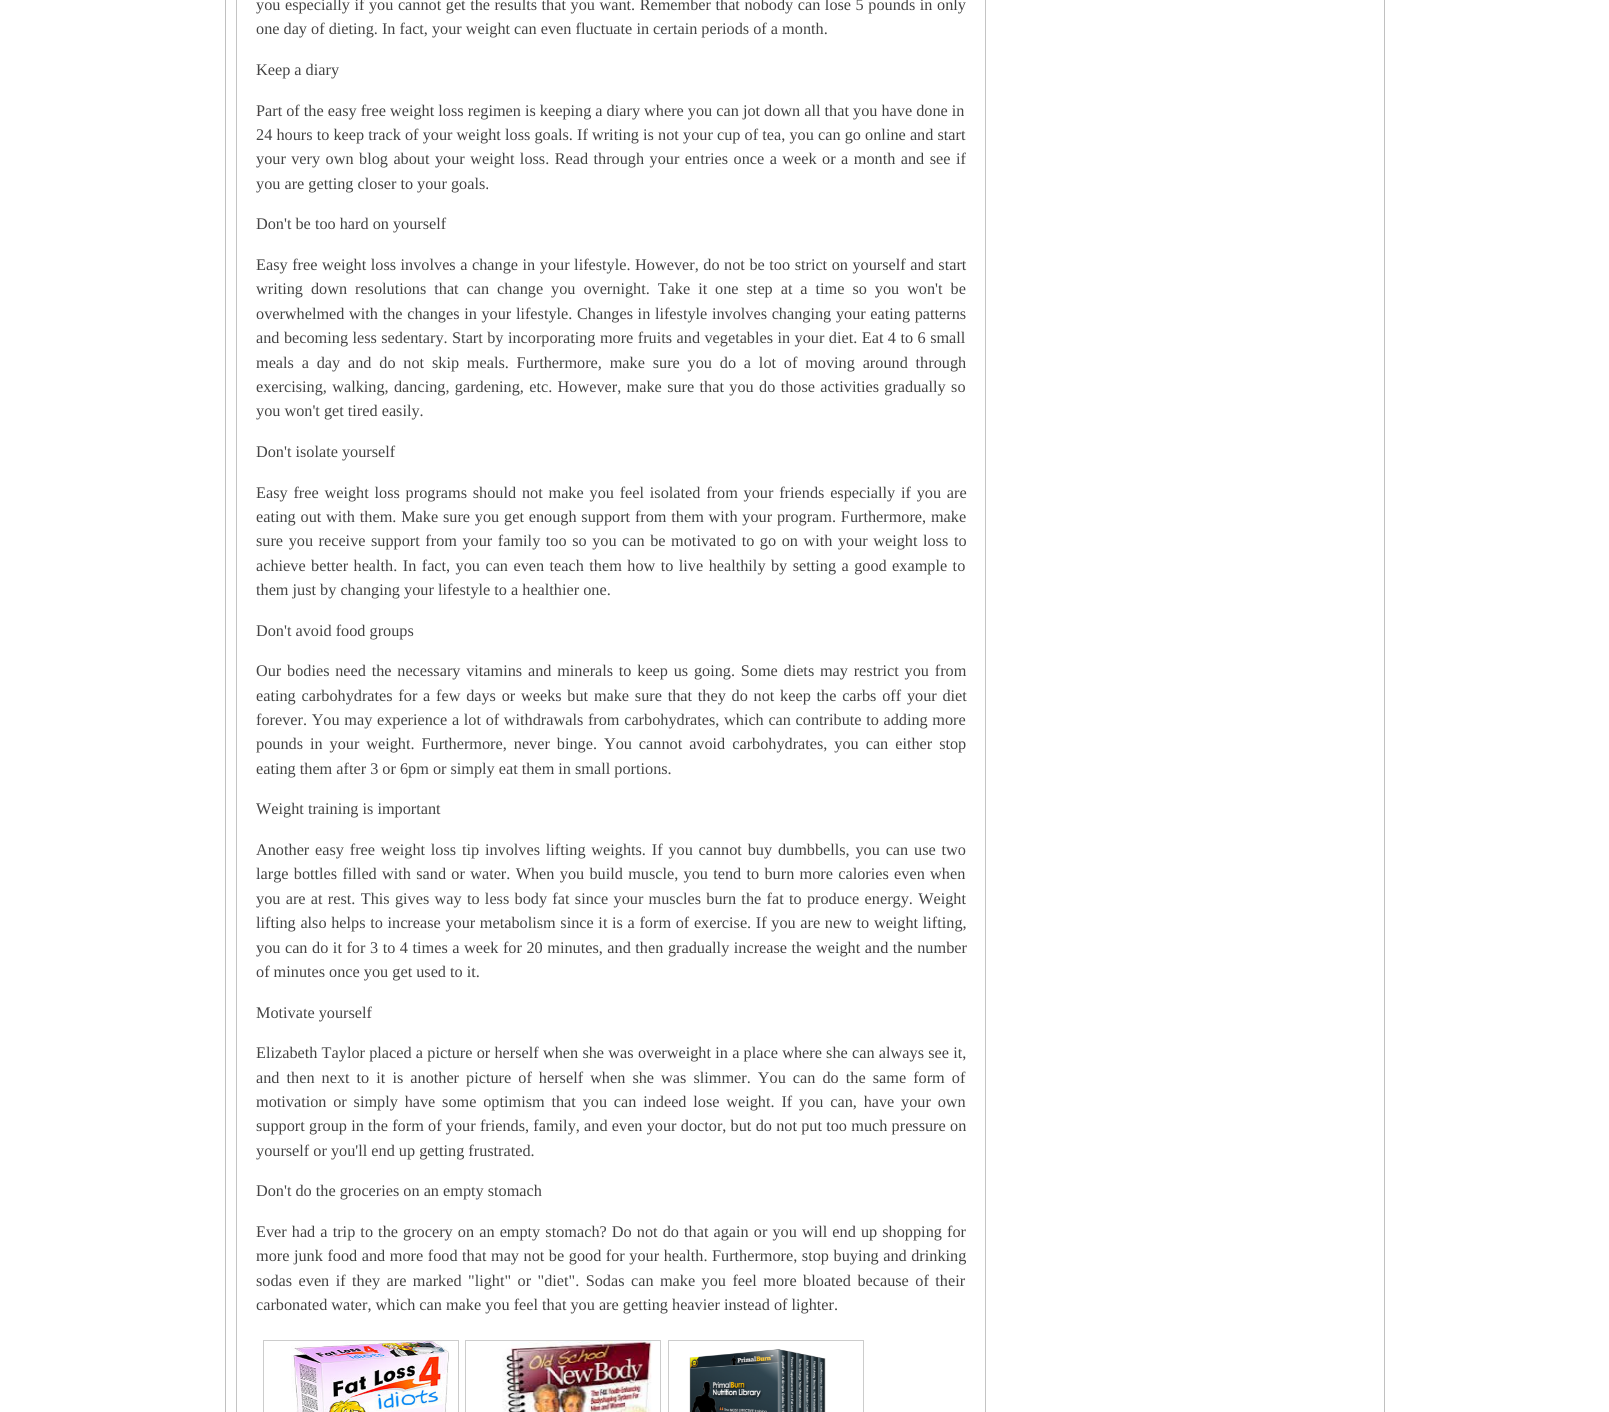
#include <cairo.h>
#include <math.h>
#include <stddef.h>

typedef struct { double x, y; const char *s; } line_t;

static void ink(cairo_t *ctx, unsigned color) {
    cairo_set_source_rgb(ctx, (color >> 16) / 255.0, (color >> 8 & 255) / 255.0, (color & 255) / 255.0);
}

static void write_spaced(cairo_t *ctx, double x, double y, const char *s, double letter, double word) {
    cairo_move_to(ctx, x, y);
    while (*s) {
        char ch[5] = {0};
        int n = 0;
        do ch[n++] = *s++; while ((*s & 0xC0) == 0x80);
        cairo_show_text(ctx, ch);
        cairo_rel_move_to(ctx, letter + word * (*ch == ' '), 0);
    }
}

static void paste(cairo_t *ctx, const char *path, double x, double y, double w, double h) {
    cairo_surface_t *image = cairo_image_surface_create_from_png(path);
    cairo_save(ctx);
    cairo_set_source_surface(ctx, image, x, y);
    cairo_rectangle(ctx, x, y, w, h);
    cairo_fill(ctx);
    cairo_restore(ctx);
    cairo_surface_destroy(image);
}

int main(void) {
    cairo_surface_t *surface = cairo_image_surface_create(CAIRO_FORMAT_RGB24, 1609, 1412);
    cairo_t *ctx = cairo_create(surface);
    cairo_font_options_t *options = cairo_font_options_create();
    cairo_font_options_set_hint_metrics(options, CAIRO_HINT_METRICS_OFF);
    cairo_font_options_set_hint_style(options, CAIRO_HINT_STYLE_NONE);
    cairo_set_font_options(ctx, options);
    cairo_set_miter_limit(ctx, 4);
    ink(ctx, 0xFFFFFF);
    cairo_paint(ctx);
    cairo_rectangle(ctx, 225.5, -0.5, 1159, 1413);
    ink(ctx, 0xC0C0C0);
    cairo_set_line_width(ctx, 1);
    cairo_stroke(ctx);
    cairo_rectangle(ctx, 236.5, -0.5, 749, 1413);
    ink(ctx, 0xC4C4C4);
    cairo_stroke(ctx);
    cairo_select_font_face(ctx, "Liberation Serif", CAIRO_FONT_SLANT_NORMAL, CAIRO_FONT_WEIGHT_NORMAL);
    cairo_set_font_size(ctx, 16.25);
    ink(ctx, 0x444444);
    write_spaced(ctx, 256, 10, "you especially if you cannot get the results that you want. Remember that nobody can lose 5 pounds in only", 0, 0.5);
    {
        static const line_t items[] = {
            {256, 34, "one day of dieting. In fact, your weight can even fluctuate in certain periods of a month."},
            {256, 75, "Keep a diary"},
            {256, 116, "Part of the easy free weight loss regimen is keeping a diary where you can jot down all that you have done in"},
        };
        for (size_t i = 0; i < sizeof items / sizeof *items; i++) {
            cairo_move_to(ctx, items[i].x, items[i].y);
            cairo_show_text(ctx, items[i].s);
        }
    }
    write_spaced(ctx, 256, 140, "24 hours to keep track of your weight loss goals. If writing is not your cup of tea, you can go online and start", 0, 0.1);
    write_spaced(ctx, 256, 164, "your very own blog about your weight loss. Read through your entries once a week or a month and see if", 0, 1.4);
    cairo_move_to(ctx, 256, 189);
    cairo_show_text(ctx, "you are getting closer to your goals.");
    cairo_move_to(ctx, 256, 229);
    cairo_show_text(ctx, "Don't be too hard on yourself");
    write_spaced(ctx, 256, 270, "Easy free weight loss involves a change in your lifestyle. However, do not be too strict on yourself and start", 0, 0.5);
    write_spaced(ctx, 256, 294, "writing down resolutions that can change you overnight. Take it one step at a time so you won't be", 0, 3.9);
    write_spaced(ctx, 256, 319, "overwhelmed with the changes in your lifestyle. Changes in lifestyle involves changing your eating patterns", 0, 0.6);
    write_spaced(ctx, 256, 343, "and becoming less sedentary. Start by incorporating more fruits and vegetables in your diet. Eat 4 to 6 small", 0, 0.4);
    write_spaced(ctx, 256, 368, "meals a day and do not skip meals. Furthermore, make sure you do a lot of moving around through", 0, 3.75);
    write_spaced(ctx, 256, 392, "exercising, walking, dancing, gardening, etc. However, make sure that you do those activities gradually so", 0, 1.3);
    cairo_move_to(ctx, 256, 416);
    cairo_show_text(ctx, "you won't get tired easily.");
    cairo_move_to(ctx, 256, 457);
    cairo_show_text(ctx, "Don't isolate yourself");
    write_spaced(ctx, 256, 498, "Easy free weight loss programs should not make you feel isolated from your friends especially if you are", 0, 1.75);
    write_spaced(ctx, 256, 522, "eating out with them. Make sure you get enough support from them with your program. Furthermore, make", 0, 0.75);
    write_spaced(ctx, 256, 546, "sure you receive support from your family too so you can be motivated to go on with your weight loss to", 0, 1.5);
    write_spaced(ctx, 256, 571, "achieve better health. In fact, you can even teach them how to live healthily by setting a good example to", 0, 1.4);
    cairo_move_to(ctx, 256, 595);
    cairo_show_text(ctx, "them just by changing your lifestyle to a healthier one.");
    cairo_move_to(ctx, 256, 636);
    cairo_show_text(ctx, "Don't avoid food groups");
    write_spaced(ctx, 256, 676, "Our bodies need the necessary vitamins and minerals to keep us going. Some diets may restrict you from", 0, 1.7);
    write_spaced(ctx, 256, 701, "eating carbohydrates for a few days or weeks but make sure that they do not keep the carbs off your diet", 0, 1.7);
    write_spaced(ctx, 256, 725, "forever. You may experience a lot of withdrawals from carbohydrates, which can contribute to adding more", 0, 0.6);
    write_spaced(ctx, 256, 749, "pounds in your weight. Furthermore, never binge. You cannot avoid carbohydrates, you can either stop", 0, 2.9);
    cairo_move_to(ctx, 256, 774);
    cairo_show_text(ctx, "eating them after 3 or 6pm or simply eat them in small portions.");
    cairo_move_to(ctx, 256, 814);
    cairo_show_text(ctx, "Weight training is important");
    write_spaced(ctx, 256, 855, "Another easy free weight loss tip involves lifting weights. If you cannot buy dumbbells, you can use two", 0, 1.75);
    write_spaced(ctx, 256, 879, "large bottles filled with sand or water. When you build muscle, you tend to burn more calories even when", 0, 1.25);
    write_spaced(ctx, 256, 904, "you are at rest. This gives way to less body fat since your muscles burn the fat to produce energy. Weight", 0, 1.25);
    write_spaced(ctx, 256, 928, "lifting also helps to increase your metabolism since it is a form of exercise. If you are new to weight lifting,", 0, 0.6);
    write_spaced(ctx, 256, 953, "you can do it for 3 to 4 times a week for 20 minutes, and then gradually increase the weight and the number", 0, 0.5);
    cairo_move_to(ctx, 256, 977);
    cairo_show_text(ctx, "of minutes once you get used to it.");
    cairo_move_to(ctx, 256, 1018);
    cairo_show_text(ctx, "Motivate yourself");
    write_spaced(ctx, 256, 1058, "Elizabeth Taylor placed a picture or herself when she was overweight in a place where she can always see it,", 0, 0.2);
    write_spaced(ctx, 256, 1083, "and then next to it is another picture of herself when she was slimmer. You can do the same form of", 0, 3);
    write_spaced(ctx, 256, 1107, "motivation or simply have some optimism that you can indeed lose weight. If you can, have your own", 0, 2.75);
    write_spaced(ctx, 256, 1131, "support group in the form of your friends, family, and even your doctor, but do not put too much pressure on", 0, 0.2);
    cairo_move_to(ctx, 256, 1156);
    cairo_show_text(ctx, "yourself or you'll end up getting frustrated.");
    cairo_move_to(ctx, 256, 1196);
    cairo_show_text(ctx, "Don't do the groceries on an empty stomach");
    write_spaced(ctx, 256, 1237, "Ever had a trip to the grocery on an empty stomach? Do not do that again or you will end up shopping for", 0, 1.05);
    write_spaced(ctx, 256, 1261, "more junk food and more food that may not be good for your health. Furthermore, stop buying and drinking", 0, 0.5);
    write_spaced(ctx, 256, 1286, "sodas even if they are marked \"light\" or \"diet\". Sodas can make you feel more bloated because of their", 0, 2.4);
    cairo_move_to(ctx, 256, 1310);
    cairo_show_text(ctx, "carbonated water, which can make you feel that you are getting heavier instead of lighter.");
    cairo_rectangle(ctx, 263.5, 1340.5, 195, 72);
    ink(ctx, 0xCCCCCC);
    cairo_stroke(ctx);
    paste(ctx, "media/1.png", 291, 1341, 158, 71);
    cairo_rectangle(ctx, 465.5, 1340.5, 195, 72);
    cairo_stroke(ctx);
    paste(ctx, "media/2.png", 502, 1341, 150, 71);
    cairo_rectangle(ctx, 668.5, 1340.5, 195, 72);
    cairo_stroke(ctx);
    paste(ctx, "media/3.png", 689, 1349, 137, 63);
    cairo_surface_write_to_png(surface, "image.png");
    cairo_font_options_destroy(options);
    cairo_destroy(ctx);
    cairo_surface_destroy(surface);
    return 0;
}
